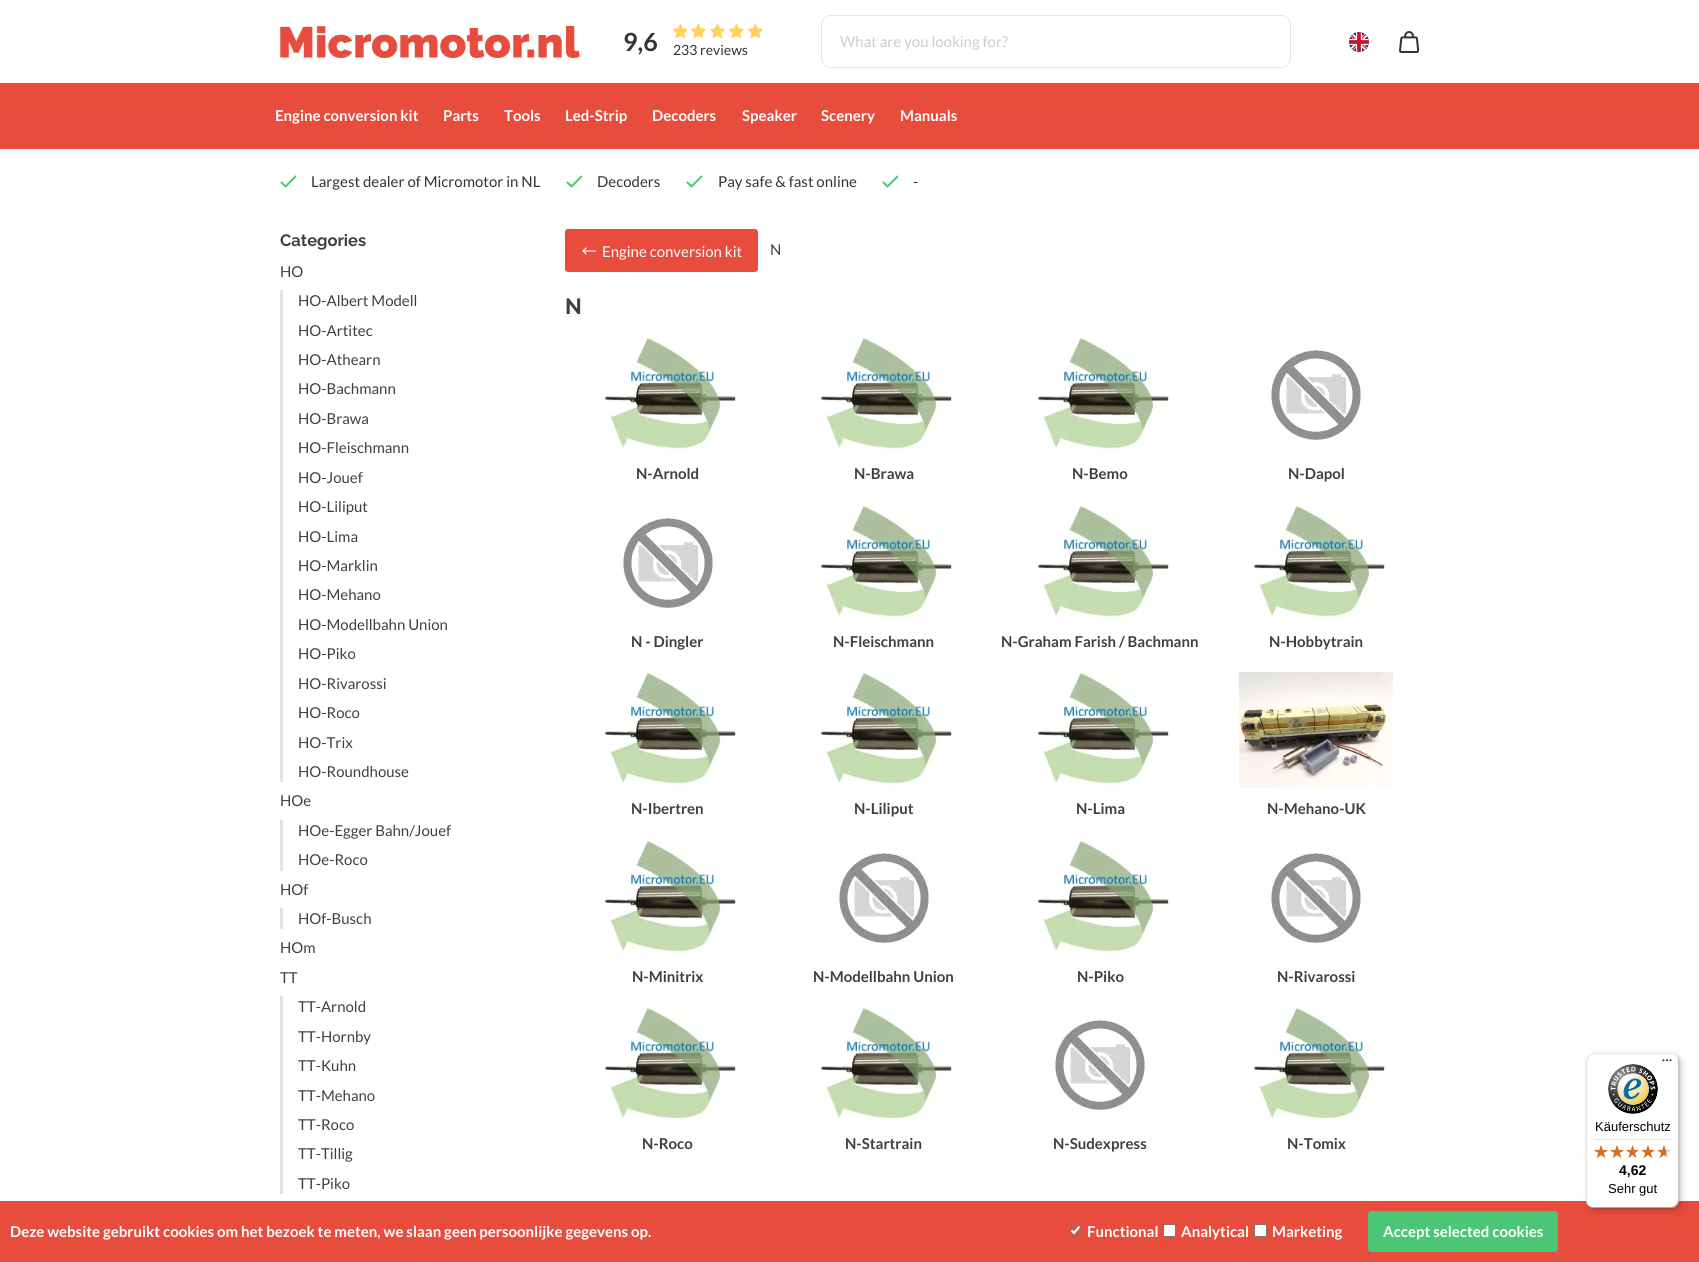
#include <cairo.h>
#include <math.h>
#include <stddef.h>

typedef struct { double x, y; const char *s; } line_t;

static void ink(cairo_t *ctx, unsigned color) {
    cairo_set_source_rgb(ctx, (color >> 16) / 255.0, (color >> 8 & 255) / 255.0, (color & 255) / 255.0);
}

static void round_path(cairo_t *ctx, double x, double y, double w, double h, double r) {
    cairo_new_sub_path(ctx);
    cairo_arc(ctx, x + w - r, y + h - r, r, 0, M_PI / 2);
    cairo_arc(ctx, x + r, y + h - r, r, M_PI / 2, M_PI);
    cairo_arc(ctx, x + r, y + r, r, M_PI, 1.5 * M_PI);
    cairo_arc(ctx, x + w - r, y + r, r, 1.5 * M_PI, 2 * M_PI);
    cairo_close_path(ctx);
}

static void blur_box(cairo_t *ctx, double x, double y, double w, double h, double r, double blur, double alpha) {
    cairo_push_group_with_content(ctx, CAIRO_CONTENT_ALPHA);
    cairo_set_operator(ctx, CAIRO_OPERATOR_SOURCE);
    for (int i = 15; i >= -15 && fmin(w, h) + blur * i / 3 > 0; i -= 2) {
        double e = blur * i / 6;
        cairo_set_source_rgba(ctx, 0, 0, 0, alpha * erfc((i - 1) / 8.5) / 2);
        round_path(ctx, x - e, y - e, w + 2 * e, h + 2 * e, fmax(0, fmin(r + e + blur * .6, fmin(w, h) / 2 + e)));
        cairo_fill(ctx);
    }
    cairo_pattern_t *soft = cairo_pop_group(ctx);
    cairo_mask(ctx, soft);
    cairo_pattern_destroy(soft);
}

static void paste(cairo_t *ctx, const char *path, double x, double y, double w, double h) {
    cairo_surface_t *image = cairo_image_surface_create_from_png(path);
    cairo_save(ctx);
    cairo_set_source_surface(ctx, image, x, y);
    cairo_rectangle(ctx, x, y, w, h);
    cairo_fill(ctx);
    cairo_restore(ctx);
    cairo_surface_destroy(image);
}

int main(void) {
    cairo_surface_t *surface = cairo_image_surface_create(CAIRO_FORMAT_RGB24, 1699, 1262);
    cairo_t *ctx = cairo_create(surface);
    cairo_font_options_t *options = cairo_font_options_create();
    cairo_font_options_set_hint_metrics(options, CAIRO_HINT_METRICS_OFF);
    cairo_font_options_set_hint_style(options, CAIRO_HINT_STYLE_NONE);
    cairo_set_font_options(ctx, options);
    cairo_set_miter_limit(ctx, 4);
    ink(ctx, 0xFFFFFF);
    cairo_paint(ctx);
    paste(ctx, "media/1.png", 280, 26, 300, 32);
    cairo_select_font_face(ctx, "Lato", CAIRO_FONT_SLANT_NORMAL, CAIRO_FONT_WEIGHT_BOLD);
    cairo_set_font_size(ctx, 25);
    ink(ctx, 0x333333);
    cairo_move_to(ctx, 623, 51);
    cairo_show_text(ctx, "9,6");
    paste(ctx, "media/2.png", 673, 24, 14, 14);
    paste(ctx, "media/3.png", 691, 24, 15, 14);
    paste(ctx, "media/3.png", 710, 24, 15, 14);
    paste(ctx, "media/3.png", 729, 24, 15, 14);
    paste(ctx, "media/2.png", 748, 24, 14, 14);
    cairo_select_font_face(ctx, "Lato", CAIRO_FONT_SLANT_NORMAL, CAIRO_FONT_WEIGHT_NORMAL);
    cairo_set_font_size(ctx, 14);
    cairo_move_to(ctx, 673, 55);
    cairo_show_text(ctx, "233 reviews");
    round_path(ctx, 821.5, 15.5, 469, 52, 9.5);
    ink(ctx, 0xE5E5E5);
    cairo_set_line_width(ctx, 1);
    cairo_stroke(ctx);
    cairo_set_font_size(ctx, 15);
    ink(ctx, 0xCCCCCC);
    cairo_move_to(ctx, 840, 47);
    cairo_show_text(ctx, "What are you looking for?");
    paste(ctx, "media/4.png", 1349, 32, 20, 20);
    paste(ctx, "media/5.png", 1399, 31, 20, 22);
    ink(ctx, 0xE74C3C);
    cairo_rectangle(ctx, 0, 83, 1699, 66);
    cairo_fill(ctx);
    cairo_select_font_face(ctx, "Lato", CAIRO_FONT_SLANT_NORMAL, CAIRO_FONT_WEIGHT_BOLD);
    ink(ctx, 0xFFFFFF);
    {
        static const line_t items[] = {
            {275, 121, "Engine conversion kit"},
            {443, 121, "Parts"},
            {504, 121, "Tools"},
            {565, 121, "Led-Strip"},
            {652, 121, "Decoders"},
            {742, 121, "Speaker"},
            {821, 121, "Scenery"},
            {900, 121, "Manuals"},
        };
        for (size_t i = 0; i < sizeof items / sizeof *items; i++) {
            cairo_move_to(ctx, items[i].x, items[i].y);
            cairo_show_text(ctx, items[i].s);
        }
    }
    cairo_save(ctx);
    cairo_rectangle(ctx, 280, 175, 16, 13);
    cairo_clip(ctx);
    cairo_new_path(ctx);
    cairo_move_to(ctx, 281.5, 182.5);
    cairo_line_to(ctx, 285.5, 186.5);
    cairo_line_to(ctx, 295.5, 176.5);
    ink(ctx, 0x4BC676);
    cairo_set_line_width(ctx, 2);
    cairo_set_line_cap(ctx, CAIRO_LINE_CAP_ROUND);
    cairo_set_line_join(ctx, CAIRO_LINE_JOIN_ROUND);
    cairo_stroke(ctx);
    cairo_restore(ctx);
    cairo_select_font_face(ctx, "Lato", CAIRO_FONT_SLANT_NORMAL, CAIRO_FONT_WEIGHT_NORMAL);
    ink(ctx, 0x333333);
    cairo_move_to(ctx, 311, 187);
    cairo_show_text(ctx, "Largest dealer of Micromotor in NL");
    cairo_save(ctx);
    cairo_rectangle(ctx, 566, 175, 16, 13);
    cairo_clip(ctx);
    cairo_new_path(ctx);
    cairo_move_to(ctx, 567.5, 182.5);
    cairo_line_to(ctx, 571.5, 186.5);
    cairo_line_to(ctx, 581.5, 176.5);
    ink(ctx, 0x4BC676);
    cairo_set_line_width(ctx, 2);
    cairo_set_line_cap(ctx, CAIRO_LINE_CAP_ROUND);
    cairo_set_line_join(ctx, CAIRO_LINE_JOIN_ROUND);
    cairo_stroke(ctx);
    cairo_restore(ctx);
    cairo_move_to(ctx, 597, 187);
    cairo_show_text(ctx, "Decoders");
    cairo_new_path(ctx);
    cairo_move_to(ctx, 687.5, 182.5);
    cairo_line_to(ctx, 691.5, 186.5);
    cairo_line_to(ctx, 701.5, 176.5);
    ink(ctx, 0x4BC676);
    cairo_set_line_width(ctx, 2);
    cairo_set_line_cap(ctx, CAIRO_LINE_CAP_ROUND);
    cairo_set_line_join(ctx, CAIRO_LINE_JOIN_ROUND);
    cairo_stroke(ctx);
    ink(ctx, 0x333333);
    cairo_move_to(ctx, 718, 187);
    cairo_show_text(ctx, "Pay safe & fast online");
    cairo_save(ctx);
    cairo_rectangle(ctx, 882, 175, 16, 13);
    cairo_clip(ctx);
    cairo_new_path(ctx);
    cairo_move_to(ctx, 883.5, 182.5);
    cairo_line_to(ctx, 887.5, 186.5);
    cairo_line_to(ctx, 897.5, 176.5);
    ink(ctx, 0x4BC676);
    cairo_stroke(ctx);
    cairo_restore(ctx);
    cairo_move_to(ctx, 913, 187);
    cairo_show_text(ctx, "-");
    cairo_select_font_face(ctx, "Raleway", CAIRO_FONT_SLANT_NORMAL, CAIRO_FONT_WEIGHT_BOLD);
    cairo_set_font_size(ctx, 16.5);
    ink(ctx, 0x404040);
    cairo_move_to(ctx, 280, 246);
    cairo_show_text(ctx, "Categories");
    cairo_select_font_face(ctx, "Lato", CAIRO_FONT_SLANT_NORMAL, CAIRO_FONT_WEIGHT_NORMAL);
    cairo_set_font_size(ctx, 15);
    cairo_move_to(ctx, 280, 277);
    cairo_show_text(ctx, "HO");
    ink(ctx, 0xE3E3E3);
    cairo_rectangle(ctx, 280, 290, 3, 492);
    cairo_fill(ctx);
    ink(ctx, 0x404040);
    {
        static const line_t items[] = {
            {298, 306, "HO-Albert Modell"},
            {298, 336, "HO-Artitec"},
            {298, 365, "HO-Athearn"},
            {298, 394, "HO-Bachmann"},
            {298, 424, "HO-Brawa"},
            {298, 453, "HO-Fleischmann"},
            {298, 483, "HO-Jouef"},
            {298, 512, "HO-Liliput"},
            {298, 542, "HO-Lima"},
            {298, 571, "HO-Marklin"},
            {298, 600, "HO-Mehano"},
            {298, 630, "HO-Modellbahn Union"},
            {298, 659, "HO-Piko"},
            {298, 689, "HO-Rivarossi"},
            {298, 718, "HO-Roco"},
            {298, 748, "HO-Trix"},
            {298, 777, "HO-Roundhouse"},
            {280, 806, "HOe"},
        };
        for (size_t i = 0; i < sizeof items / sizeof *items; i++) {
            cairo_move_to(ctx, items[i].x, items[i].y);
            cairo_show_text(ctx, items[i].s);
        }
    }
    ink(ctx, 0xE3E3E3);
    cairo_rectangle(ctx, 280, 820, 3, 51);
    cairo_fill(ctx);
    ink(ctx, 0x404040);
    {
        static const line_t items[] = {
            {298, 836, "HOe-Egger Bahn/Jouef"},
            {298, 865, "HOe-Roco"},
            {280, 895, "HOf"},
        };
        for (size_t i = 0; i < sizeof items / sizeof *items; i++) {
            cairo_move_to(ctx, items[i].x, items[i].y);
            cairo_show_text(ctx, items[i].s);
        }
    }
    ink(ctx, 0xE3E3E3);
    cairo_rectangle(ctx, 280, 908, 3, 21);
    cairo_fill(ctx);
    ink(ctx, 0x404040);
    {
        static const line_t items[] = {
            {298, 924, "HOf-Busch"},
            {280, 953, "HOm"},
            {280, 983, "TT"},
        };
        for (size_t i = 0; i < sizeof items / sizeof *items; i++) {
            cairo_move_to(ctx, items[i].x, items[i].y);
            cairo_show_text(ctx, items[i].s);
        }
    }
    ink(ctx, 0xE3E3E3);
    cairo_rectangle(ctx, 280, 996, 3, 198);
    cairo_fill(ctx);
    ink(ctx, 0x404040);
    {
        static const line_t items[] = {
            {298, 1012, "TT-Arnold"},
            {298, 1042, "TT-Hornby"},
            {298, 1071, "TT-Kuhn"},
            {298, 1101, "TT-Mehano"},
            {298, 1130, "TT-Roco"},
            {298, 1159, "TT-Tillig"},
            {298, 1189, "TT-Piko"},
        };
        for (size_t i = 0; i < sizeof items / sizeof *items; i++) {
            cairo_move_to(ctx, items[i].x, items[i].y);
            cairo_show_text(ctx, items[i].s);
        }
    }
    ink(ctx, 0xE74C3C);
    round_path(ctx, 565, 229, 193, 43, 3);
    cairo_fill(ctx);
    paste(ctx, "media/6.png", 582, 247, 14, 8);
    ink(ctx, 0xFFFFFF);
    cairo_move_to(ctx, 602, 257);
    cairo_show_text(ctx, "Engine conversion kit");
    ink(ctx, 0x404040);
    cairo_move_to(ctx, 770, 255);
    cairo_show_text(ctx, "N");
    cairo_select_font_face(ctx, "Raleway", CAIRO_FONT_SLANT_NORMAL, CAIRO_FONT_WEIGHT_BOLD);
    cairo_set_font_size(ctx, 22);
    cairo_move_to(ctx, 565, 314);
    cairo_show_text(ctx, "N");
    paste(ctx, "media/7.png", 604, 337, 133, 116);
    cairo_select_font_face(ctx, "Lato", CAIRO_FONT_SLANT_NORMAL, CAIRO_FONT_WEIGHT_BOLD);
    cairo_set_font_size(ctx, 15);
    cairo_move_to(ctx, 636, 479);
    cairo_show_text(ctx, "N-Arnold");
    paste(ctx, "media/8.png", 820, 337, 133, 116);
    cairo_move_to(ctx, 854, 479);
    cairo_show_text(ctx, "N-Brawa");
    paste(ctx, "media/7.png", 1037, 337, 133, 116);
    cairo_move_to(ctx, 1072, 479);
    cairo_show_text(ctx, "N-Bemo");
    paste(ctx, "media/9.png", 1268, 350, 96, 90);
    cairo_move_to(ctx, 1288, 479);
    cairo_show_text(ctx, "N-Dapol");
    paste(ctx, "media/9.png", 620, 518, 96, 90);
    cairo_move_to(ctx, 631, 647);
    cairo_show_text(ctx, "N - Dingler");
    paste(ctx, "media/8.png", 820, 505, 133, 116);
    cairo_move_to(ctx, 833, 647);
    cairo_show_text(ctx, "N-Fleischmann");
    paste(ctx, "media/7.png", 1037, 505, 133, 116);
    cairo_move_to(ctx, 1001, 647);
    cairo_show_text(ctx, "N-Graham Farish / Bachmann");
    paste(ctx, "media/7.png", 1253, 505, 133, 116);
    cairo_move_to(ctx, 1269, 647);
    cairo_show_text(ctx, "N-Hobbytrain");
    paste(ctx, "media/10.png", 604, 672, 133, 116);
    cairo_move_to(ctx, 631, 814);
    cairo_show_text(ctx, "N-Ibertren");
    paste(ctx, "media/11.png", 820, 672, 133, 116);
    cairo_move_to(ctx, 854, 814);
    cairo_show_text(ctx, "N-Liliput");
    paste(ctx, "media/10.png", 1037, 672, 133, 116);
    cairo_move_to(ctx, 1076, 814);
    cairo_show_text(ctx, "N-Lima");
    paste(ctx, "media/12.png", 1239, 672, 154, 116);
    cairo_move_to(ctx, 1267, 814);
    cairo_show_text(ctx, "N-Mehano-UK");
    paste(ctx, "media/7.png", 604, 840, 133, 116);
    cairo_move_to(ctx, 632, 982);
    cairo_show_text(ctx, "N-Minitrix");
    paste(ctx, "media/9.png", 836, 853, 96, 90);
    cairo_move_to(ctx, 813, 982);
    cairo_show_text(ctx, "N-Modellbahn Union");
    paste(ctx, "media/7.png", 1037, 840, 133, 116);
    cairo_move_to(ctx, 1077, 982);
    cairo_show_text(ctx, "N-Piko");
    paste(ctx, "media/9.png", 1268, 853, 96, 90);
    cairo_move_to(ctx, 1277, 982);
    cairo_show_text(ctx, "N-Rivarossi");
    paste(ctx, "media/13.png", 604, 1007, 133, 116);
    cairo_move_to(ctx, 642, 1149);
    cairo_show_text(ctx, "N-Roco");
    paste(ctx, "media/14.png", 820, 1007, 133, 116);
    cairo_move_to(ctx, 845, 1149);
    cairo_show_text(ctx, "N-Startrain");
    paste(ctx, "media/9.png", 1052, 1020, 96, 90);
    cairo_move_to(ctx, 1053, 1149);
    cairo_show_text(ctx, "N-Sudexpress");
    paste(ctx, "media/13.png", 1253, 1007, 133, 116);
    cairo_move_to(ctx, 1287, 1149);
    cairo_show_text(ctx, "N-Tomix");
    ink(ctx, 0xE74C3C);
    cairo_rectangle(ctx, 0, 1201, 1699, 61);
    cairo_fill(ctx);
    ink(ctx, 0x000000);
    blur_box(ctx, 1589, 1056, 93, 155, 8, 4, 0.15);
    blur_box(ctx, 1587, 1054, 93, 155, 8, 1, 0.15);
    ink(ctx, 0xFFFFFF);
    round_path(ctx, 1586, 1053, 93, 155, 8);
    cairo_fill(ctx);
    cairo_set_source_rgba(ctx, 0, 0, 0, 0.1);
    cairo_new_path(ctx);
    cairo_move_to(ctx, 1595, 1054);
    cairo_line_to(ctx, 1672, 1054);
    cairo_curve_to(ctx, 1674, 1054, 1676, 1055, 1678, 1057);
    cairo_curve_to(ctx, 1676, 1055, 1674, 1053, 1671, 1053);
    cairo_line_to(ctx, 1594, 1053);
    cairo_curve_to(ctx, 1590, 1053, 1586, 1057, 1586, 1061);
    cairo_line_to(ctx, 1586, 1200);
    cairo_curve_to(ctx, 1586, 1203, 1588, 1205, 1590, 1207);
    cairo_curve_to(ctx, 1588, 1205, 1587, 1203, 1587, 1201);
    cairo_line_to(ctx, 1587, 1062);
    cairo_curve_to(ctx, 1587, 1058, 1591, 1054, 1595, 1054);
    cairo_close_path(ctx);
    cairo_fill(ctx);
    cairo_set_source_rgba(ctx, 0, 0, 0, 0.2);
    cairo_new_path(ctx);
    cairo_move_to(ctx, 1587, 1204);
    cairo_curve_to(ctx, 1589, 1206, 1591, 1208, 1594, 1208);
    cairo_line_to(ctx, 1671, 1208);
    cairo_curve_to(ctx, 1675, 1208, 1679, 1204, 1679, 1200);
    cairo_line_to(ctx, 1679, 1061);
    cairo_curve_to(ctx, 1679, 1058, 1677, 1056, 1675, 1054);
    cairo_curve_to(ctx, 1677, 1056, 1678, 1058, 1678, 1060);
    cairo_line_to(ctx, 1678, 1199);
    cairo_curve_to(ctx, 1678, 1203, 1674, 1207, 1670, 1207);
    cairo_line_to(ctx, 1593, 1207);
    cairo_curve_to(ctx, 1591, 1207, 1589, 1206, 1587, 1204);
    cairo_close_path(ctx);
    cairo_fill(ctx);
    cairo_set_source_rgba(ctx, 0.196, 0.196, 0.196, 0.2);
    cairo_new_path(ctx);
    cairo_move_to(ctx, 1588, 1205);
    cairo_curve_to(ctx, 1589, 1207, 1592, 1208, 1594, 1208);
    cairo_line_to(ctx, 1671, 1208);
    cairo_curve_to(ctx, 1675, 1208, 1679, 1204, 1679, 1200);
    cairo_line_to(ctx, 1679, 1061);
    cairo_curve_to(ctx, 1679, 1059, 1678, 1056, 1676, 1055);
    cairo_curve_to(ctx, 1677, 1056, 1678, 1058, 1678, 1060);
    cairo_line_to(ctx, 1678, 1199);
    cairo_curve_to(ctx, 1678, 1204, 1675, 1207, 1670, 1207);
    cairo_line_to(ctx, 1593, 1207);
    cairo_curve_to(ctx, 1591, 1207, 1589, 1206, 1588, 1205);
    cairo_close_path(ctx);
    cairo_fill(ctx);
    cairo_set_source_rgba(ctx, 1, 1, 1, 0.3);
    cairo_new_path(ctx);
    cairo_move_to(ctx, 1670, 1208);
    cairo_line_to(ctx, 1671, 1208);
    cairo_curve_to(ctx, 1675, 1208, 1679, 1204, 1679, 1200);
    cairo_line_to(ctx, 1679, 1061);
    cairo_curve_to(ctx, 1679, 1059, 1678, 1056, 1676, 1055);
    cairo_curve_to(ctx, 1677, 1056, 1678, 1058, 1678, 1060);
    cairo_line_to(ctx, 1678, 1200);
    cairo_curve_to(ctx, 1678, 1204, 1675, 1208, 1670, 1208);
    cairo_close_path(ctx);
    cairo_fill(ctx);
    paste(ctx, "media/15.png", 1662, 1059, 10, 3);
    paste(ctx, "media/16.png", 1608, 1064, 50, 50);
    cairo_select_font_face(ctx, "Liberation Sans", CAIRO_FONT_SLANT_NORMAL, CAIRO_FONT_WEIGHT_NORMAL);
    cairo_set_font_size(ctx, 13);
    ink(ctx, 0x000000);
    cairo_move_to(ctx, 1595, 1131);
    cairo_show_text(ctx, "Käuferschutz");
    ink(ctx, 0xE5E5E5);
    cairo_rectangle(ctx, 1594, 1139, 77, 1);
    cairo_fill(ctx);
    paste(ctx, "media/17.png", 1594, 1145, 14, 13);
    paste(ctx, "media/17.png", 1610, 1145, 14, 13);
    paste(ctx, "media/18.png", 1626, 1145, 13, 13);
    paste(ctx, "media/17.png", 1641, 1145, 14, 13);
    paste(ctx, "media/17.png", 1657, 1145, 14, 13);
    paste(ctx, "media/19.png", 1594, 1145, 14, 13);
    paste(ctx, "media/19.png", 1610, 1145, 14, 13);
    paste(ctx, "media/20.png", 1626, 1145, 13, 13);
    paste(ctx, "media/19.png", 1641, 1145, 14, 13);
    paste(ctx, "media/21.png", 1657, 1145, 9, 13);
    cairo_select_font_face(ctx, "Liberation Sans", CAIRO_FONT_SLANT_NORMAL, CAIRO_FONT_WEIGHT_BOLD);
    cairo_set_font_size(ctx, 14);
    ink(ctx, 0x000000);
    cairo_move_to(ctx, 1619, 1175);
    cairo_show_text(ctx, "4,62");
    cairo_select_font_face(ctx, "Liberation Sans", CAIRO_FONT_SLANT_NORMAL, CAIRO_FONT_WEIGHT_NORMAL);
    cairo_set_font_size(ctx, 13);
    cairo_move_to(ctx, 1608, 1193);
    cairo_show_text(ctx, "Sehr gut");
    cairo_select_font_face(ctx, "Lato", CAIRO_FONT_SLANT_NORMAL, CAIRO_FONT_WEIGHT_BOLD);
    cairo_set_font_size(ctx, 15);
    ink(ctx, 0xFFFFFF);
    cairo_move_to(ctx, 10, 1237);
    cairo_show_text(ctx, "Deze website gebruikt cookies om het bezoek te meten, we slaan geen persoonlijke gegevens op.");
    ink(ctx, 0xC5594D);
    round_path(ctx, 1069, 1224, 13, 13, 2);
    cairo_fill(ctx);
    cairo_new_path(ctx);
    cairo_move_to(ctx, 1071.5, 1230.5);
    cairo_line_to(ctx, 1074, 1233);
    cairo_line_to(ctx, 1079.5, 1226.5);
    ink(ctx, 0xFFFFFF);
    cairo_set_line_width(ctx, 2.1);
    cairo_set_line_cap(ctx, CAIRO_LINE_CAP_BUTT);
    cairo_set_line_join(ctx, CAIRO_LINE_JOIN_MITER);
    cairo_stroke(ctx);
    cairo_move_to(ctx, 1087, 1237);
    cairo_show_text(ctx, "Functional");
    round_path(ctx, 1163.5, 1224.5, 12, 12, 1.5);
    cairo_fill_preserve(ctx);
    ink(ctx, 0x767676);
    cairo_set_line_width(ctx, 1);
    cairo_stroke(ctx);
    ink(ctx, 0xFFFFFF);
    cairo_move_to(ctx, 1181, 1237);
    cairo_show_text(ctx, "Analytical");
    round_path(ctx, 1254.5, 1224.5, 12, 12, 1.5);
    cairo_fill_preserve(ctx);
    ink(ctx, 0x767676);
    cairo_stroke(ctx);
    ink(ctx, 0xFFFFFF);
    cairo_move_to(ctx, 1272, 1237);
    cairo_show_text(ctx, "Marketing");
    ink(ctx, 0x4BC676);
    round_path(ctx, 1368, 1211, 190, 41, 3);
    cairo_fill(ctx);
    ink(ctx, 0xFFFFFF);
    cairo_move_to(ctx, 1383, 1237);
    cairo_show_text(ctx, "Accept selected cookies");
    cairo_surface_write_to_png(surface, "image.png");
    cairo_font_options_destroy(options);
    cairo_destroy(ctx);
    cairo_surface_destroy(surface);
    return 0;
}
